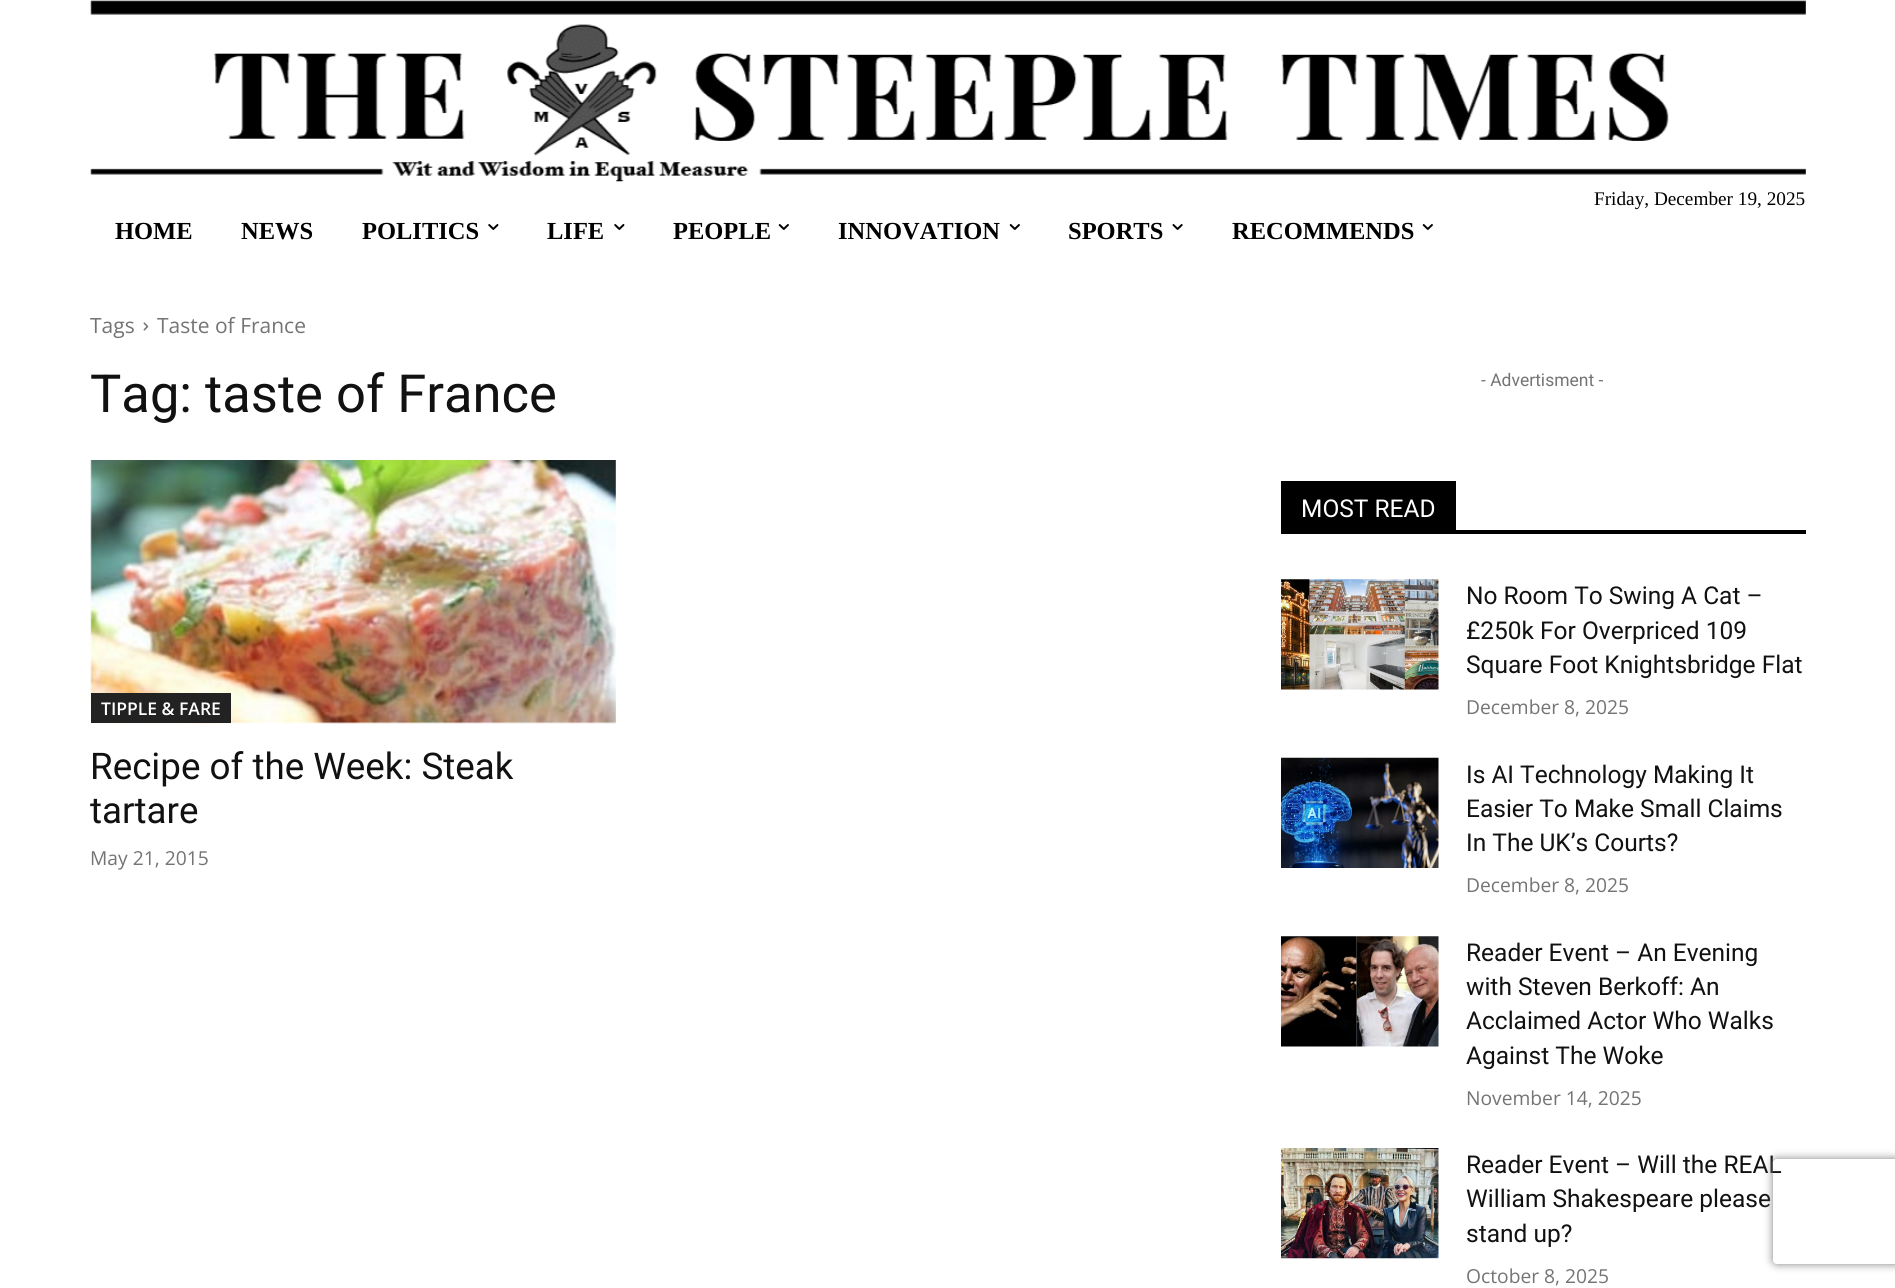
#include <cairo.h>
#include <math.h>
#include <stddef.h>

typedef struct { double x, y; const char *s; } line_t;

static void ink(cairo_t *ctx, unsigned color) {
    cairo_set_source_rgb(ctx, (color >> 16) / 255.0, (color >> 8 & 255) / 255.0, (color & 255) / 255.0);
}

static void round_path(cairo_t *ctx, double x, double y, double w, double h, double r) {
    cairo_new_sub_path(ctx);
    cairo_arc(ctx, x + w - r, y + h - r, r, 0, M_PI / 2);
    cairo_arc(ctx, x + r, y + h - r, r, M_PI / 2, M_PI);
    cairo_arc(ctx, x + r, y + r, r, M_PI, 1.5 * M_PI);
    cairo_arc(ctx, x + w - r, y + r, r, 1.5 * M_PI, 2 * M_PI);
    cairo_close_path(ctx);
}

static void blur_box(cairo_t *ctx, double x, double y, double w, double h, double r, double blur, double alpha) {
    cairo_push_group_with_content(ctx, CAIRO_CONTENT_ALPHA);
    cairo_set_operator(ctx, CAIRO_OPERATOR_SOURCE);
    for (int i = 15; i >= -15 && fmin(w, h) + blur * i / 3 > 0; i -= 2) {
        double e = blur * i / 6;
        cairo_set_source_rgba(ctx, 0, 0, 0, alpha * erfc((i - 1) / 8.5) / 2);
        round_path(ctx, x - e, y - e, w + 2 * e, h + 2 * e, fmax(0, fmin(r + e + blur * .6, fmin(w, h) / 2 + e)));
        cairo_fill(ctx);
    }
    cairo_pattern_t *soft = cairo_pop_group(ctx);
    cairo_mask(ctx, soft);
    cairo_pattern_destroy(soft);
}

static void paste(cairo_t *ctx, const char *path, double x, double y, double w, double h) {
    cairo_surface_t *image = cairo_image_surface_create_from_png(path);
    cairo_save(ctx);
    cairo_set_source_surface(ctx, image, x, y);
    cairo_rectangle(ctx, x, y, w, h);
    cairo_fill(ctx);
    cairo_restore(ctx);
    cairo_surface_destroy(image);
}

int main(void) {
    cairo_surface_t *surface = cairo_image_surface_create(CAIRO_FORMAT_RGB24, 1895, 1288);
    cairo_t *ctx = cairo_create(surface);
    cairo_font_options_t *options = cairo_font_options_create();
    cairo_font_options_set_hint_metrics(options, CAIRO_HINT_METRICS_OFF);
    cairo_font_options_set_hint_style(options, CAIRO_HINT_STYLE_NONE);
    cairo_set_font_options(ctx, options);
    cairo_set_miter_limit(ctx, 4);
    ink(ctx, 0xFFFFFF);
    cairo_paint(ctx);
    paste(ctx, "media/1.png", 90, 0, 1716, 182);
    cairo_select_font_face(ctx, "Liberation Serif", CAIRO_FONT_SLANT_NORMAL, CAIRO_FONT_WEIGHT_NORMAL);
    cairo_set_font_size(ctx, 19.25);
    ink(ctx, 0x000000);
    cairo_move_to(ctx, 1594, 205);
    cairo_show_text(ctx, "Friday, December 19, 2025");
    cairo_select_font_face(ctx, "Liberation Serif", CAIRO_FONT_SLANT_NORMAL, CAIRO_FONT_WEIGHT_BOLD);
    cairo_set_font_size(ctx, 24.5);
    {
        static const line_t items[] = {
            {115, 239, "HOME"},
            {241, 239, "NEWS"},
            {362, 239, "POLITICS"},
        };
        for (size_t i = 0; i < sizeof items / sizeof *items; i++) {
            cairo_move_to(ctx, items[i].x, items[i].y);
            cairo_show_text(ctx, items[i].s);
        }
    }
    paste(ctx, "media/2.png", 488, 224, 11, 6);
    cairo_move_to(ctx, 547, 239);
    cairo_show_text(ctx, "LIFE");
    paste(ctx, "media/2.png", 614, 224, 11, 6);
    cairo_move_to(ctx, 673, 239);
    cairo_show_text(ctx, "PEOPLE");
    paste(ctx, "media/3.png", 778, 224, 11, 6);
    cairo_move_to(ctx, 838, 239);
    cairo_show_text(ctx, "INNOVATION");
    paste(ctx, "media/3.png", 1009, 224, 11, 6);
    cairo_move_to(ctx, 1068, 239);
    cairo_show_text(ctx, "SPORTS");
    paste(ctx, "media/4.png", 1172, 224, 11, 6);
    cairo_move_to(ctx, 1232, 239);
    cairo_show_text(ctx, "RECOMMENDS");
    paste(ctx, "media/3.png", 1422, 224, 11, 6);
    cairo_select_font_face(ctx, "Open Sans", CAIRO_FONT_SLANT_NORMAL, CAIRO_FONT_WEIGHT_NORMAL);
    cairo_set_font_size(ctx, 21);
    ink(ctx, 0x747474);
    cairo_move_to(ctx, 90, 333);
    cairo_show_text(ctx, "Tags");
    paste(ctx, "media/5.png", 143, 322, 6, 9);
    cairo_move_to(ctx, 157, 333);
    cairo_show_text(ctx, "Taste of France");
    cairo_select_font_face(ctx, "Roboto", CAIRO_FONT_SLANT_NORMAL, CAIRO_FONT_WEIGHT_NORMAL);
    cairo_set_font_size(ctx, 52.5);
    ink(ctx, 0x111111);
    cairo_move_to(ctx, 90, 412);
    cairo_show_text(ctx, "Tag: taste of France");
    paste(ctx, "media/6.png", 90, 460, 526, 264);
    ink(ctx, 0x222222);
    cairo_rectangle(ctx, 91, 693, 140, 30);
    cairo_fill(ctx);
    cairo_select_font_face(ctx, "Open Sans SemiBold", CAIRO_FONT_SLANT_NORMAL, CAIRO_FONT_WEIGHT_NORMAL);
    cairo_set_font_size(ctx, 17.5);
    ink(ctx, 0xFFFFFF);
    cairo_move_to(ctx, 101, 715);
    cairo_show_text(ctx, "TIPPLE & FARE");
    cairo_select_font_face(ctx, "Roboto", CAIRO_FONT_SLANT_NORMAL, CAIRO_FONT_WEIGHT_NORMAL);
    cairo_set_font_size(ctx, 36.75);
    ink(ctx, 0x111111);
    cairo_move_to(ctx, 90, 779);
    cairo_show_text(ctx, "Recipe of the Week: Steak");
    cairo_move_to(ctx, 90, 823);
    cairo_show_text(ctx, "tartare");
    cairo_select_font_face(ctx, "Open Sans", CAIRO_FONT_SLANT_NORMAL, CAIRO_FONT_WEIGHT_NORMAL);
    cairo_set_font_size(ctx, 19.25);
    ink(ctx, 0x747474);
    cairo_move_to(ctx, 90, 865);
    cairo_show_text(ctx, "May 21, 2015");
    cairo_select_font_face(ctx, "Roboto", CAIRO_FONT_SLANT_NORMAL, CAIRO_FONT_WEIGHT_NORMAL);
    cairo_set_font_size(ctx, 17.5);
    cairo_move_to(ctx, 1481, 386);
    cairo_show_text(ctx, "- Advertisment -");
    ink(ctx, 0x000000);
    cairo_rectangle(ctx, 1281, 530, 525, 4);
    cairo_fill(ctx);
    cairo_rectangle(ctx, 1281, 481, 175, 49);
    cairo_fill(ctx);
    cairo_set_font_size(ctx, 24.5);
    ink(ctx, 0xFFFFFF);
    cairo_move_to(ctx, 1301, 517);
    cairo_show_text(ctx, "MOST READ");
    paste(ctx, "media/7.png", 1281, 579, 158, 111);
    ink(ctx, 0x111111);
    {
        static const line_t items[] = {
            {1466, 604, "No Room To Swing A Cat –"},
            {1466, 639, "£250k For Overpriced 109"},
            {1466, 673, "Square Foot Knightsbridge Flat"},
        };
        for (size_t i = 0; i < sizeof items / sizeof *items; i++) {
            cairo_move_to(ctx, items[i].x, items[i].y);
            cairo_show_text(ctx, items[i].s);
        }
    }
    cairo_select_font_face(ctx, "Open Sans", CAIRO_FONT_SLANT_NORMAL, CAIRO_FONT_WEIGHT_NORMAL);
    cairo_set_font_size(ctx, 19.25);
    ink(ctx, 0x747474);
    cairo_move_to(ctx, 1466, 714);
    cairo_show_text(ctx, "December 8, 2025");
    paste(ctx, "media/8.png", 1281, 757, 158, 111);
    cairo_select_font_face(ctx, "Roboto", CAIRO_FONT_SLANT_NORMAL, CAIRO_FONT_WEIGHT_NORMAL);
    cairo_set_font_size(ctx, 24.5);
    ink(ctx, 0x111111);
    {
        static const line_t items[] = {
            {1466, 783, "Is AI Technology Making It"},
            {1466, 817, "Easier To Make Small Claims"},
            {1466, 851, "In The UK’s Courts?"},
        };
        for (size_t i = 0; i < sizeof items / sizeof *items; i++) {
            cairo_move_to(ctx, items[i].x, items[i].y);
            cairo_show_text(ctx, items[i].s);
        }
    }
    cairo_select_font_face(ctx, "Open Sans", CAIRO_FONT_SLANT_NORMAL, CAIRO_FONT_WEIGHT_NORMAL);
    cairo_set_font_size(ctx, 19.25);
    ink(ctx, 0x747474);
    cairo_move_to(ctx, 1466, 892);
    cairo_show_text(ctx, "December 8, 2025");
    paste(ctx, "media/9.png", 1281, 936, 158, 111);
    cairo_select_font_face(ctx, "Roboto", CAIRO_FONT_SLANT_NORMAL, CAIRO_FONT_WEIGHT_NORMAL);
    cairo_set_font_size(ctx, 24.5);
    ink(ctx, 0x111111);
    {
        static const line_t items[] = {
            {1466, 961, "Reader Event – An Evening"},
            {1466, 995, "with Steven Berkoff: An"},
            {1466, 1029, "Acclaimed Actor Who Walks"},
            {1466, 1064, "Against The Woke"},
        };
        for (size_t i = 0; i < sizeof items / sizeof *items; i++) {
            cairo_move_to(ctx, items[i].x, items[i].y);
            cairo_show_text(ctx, items[i].s);
        }
    }
    cairo_select_font_face(ctx, "Open Sans", CAIRO_FONT_SLANT_NORMAL, CAIRO_FONT_WEIGHT_NORMAL);
    cairo_set_font_size(ctx, 19.25);
    ink(ctx, 0x747474);
    cairo_move_to(ctx, 1466, 1105);
    cairo_show_text(ctx, "November 14, 2025");
    paste(ctx, "media/10.png", 1281, 1148, 158, 111);
    cairo_select_font_face(ctx, "Roboto", CAIRO_FONT_SLANT_NORMAL, CAIRO_FONT_WEIGHT_NORMAL);
    cairo_set_font_size(ctx, 24.5);
    ink(ctx, 0x111111);
    {
        static const line_t items[] = {
            {1466, 1173, "Reader Event – Will the REAL"},
            {1466, 1207, "William Shakespeare please"},
            {1466, 1242, "stand up?"},
        };
        for (size_t i = 0; i < sizeof items / sizeof *items; i++) {
            cairo_move_to(ctx, items[i].x, items[i].y);
            cairo_show_text(ctx, items[i].s);
        }
    }
    cairo_select_font_face(ctx, "Open Sans", CAIRO_FONT_SLANT_NORMAL, CAIRO_FONT_WEIGHT_NORMAL);
    cairo_set_font_size(ctx, 19.25);
    ink(ctx, 0x747474);
    cairo_move_to(ctx, 1466, 1283);
    cairo_show_text(ctx, "October 8, 2025");
    cairo_save(ctx);
    cairo_set_fill_rule(ctx, CAIRO_FILL_RULE_EVEN_ODD);
    cairo_new_path(ctx);
    cairo_move_to(ctx, 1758, 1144);
    cairo_line_to(ctx, 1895, 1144);
    cairo_line_to(ctx, 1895, 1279);
    cairo_line_to(ctx, 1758, 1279);
    cairo_close_path(ctx);
    cairo_move_to(ctx, 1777, 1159);
    cairo_line_to(ctx, 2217, 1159);
    cairo_curve_to(ctx, 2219, 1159, 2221, 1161, 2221, 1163);
    cairo_line_to(ctx, 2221, 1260);
    cairo_curve_to(ctx, 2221, 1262, 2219, 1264, 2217, 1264);
    cairo_line_to(ctx, 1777, 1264);
    cairo_curve_to(ctx, 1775, 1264, 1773, 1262, 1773, 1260);
    cairo_line_to(ctx, 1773, 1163);
    cairo_curve_to(ctx, 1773, 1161, 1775, 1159, 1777, 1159);
    cairo_close_path(ctx);
    cairo_clip(ctx);
    ink(ctx, 0x808080);
    blur_box(ctx, 1773, 1159, 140, 105, 4, 4.5, 1);
    cairo_restore(ctx);
    cairo_surface_write_to_png(surface, "image.png");
    cairo_font_options_destroy(options);
    cairo_destroy(ctx);
    cairo_surface_destroy(surface);
    return 0;
}
